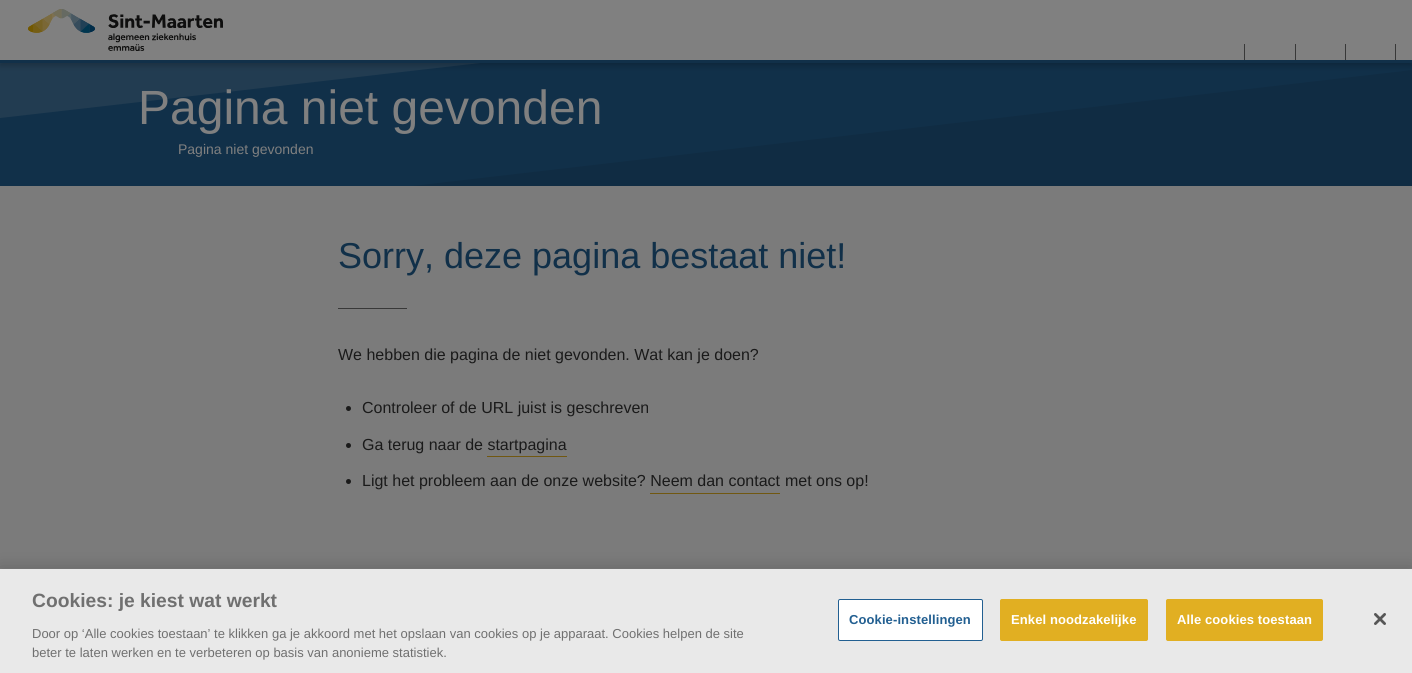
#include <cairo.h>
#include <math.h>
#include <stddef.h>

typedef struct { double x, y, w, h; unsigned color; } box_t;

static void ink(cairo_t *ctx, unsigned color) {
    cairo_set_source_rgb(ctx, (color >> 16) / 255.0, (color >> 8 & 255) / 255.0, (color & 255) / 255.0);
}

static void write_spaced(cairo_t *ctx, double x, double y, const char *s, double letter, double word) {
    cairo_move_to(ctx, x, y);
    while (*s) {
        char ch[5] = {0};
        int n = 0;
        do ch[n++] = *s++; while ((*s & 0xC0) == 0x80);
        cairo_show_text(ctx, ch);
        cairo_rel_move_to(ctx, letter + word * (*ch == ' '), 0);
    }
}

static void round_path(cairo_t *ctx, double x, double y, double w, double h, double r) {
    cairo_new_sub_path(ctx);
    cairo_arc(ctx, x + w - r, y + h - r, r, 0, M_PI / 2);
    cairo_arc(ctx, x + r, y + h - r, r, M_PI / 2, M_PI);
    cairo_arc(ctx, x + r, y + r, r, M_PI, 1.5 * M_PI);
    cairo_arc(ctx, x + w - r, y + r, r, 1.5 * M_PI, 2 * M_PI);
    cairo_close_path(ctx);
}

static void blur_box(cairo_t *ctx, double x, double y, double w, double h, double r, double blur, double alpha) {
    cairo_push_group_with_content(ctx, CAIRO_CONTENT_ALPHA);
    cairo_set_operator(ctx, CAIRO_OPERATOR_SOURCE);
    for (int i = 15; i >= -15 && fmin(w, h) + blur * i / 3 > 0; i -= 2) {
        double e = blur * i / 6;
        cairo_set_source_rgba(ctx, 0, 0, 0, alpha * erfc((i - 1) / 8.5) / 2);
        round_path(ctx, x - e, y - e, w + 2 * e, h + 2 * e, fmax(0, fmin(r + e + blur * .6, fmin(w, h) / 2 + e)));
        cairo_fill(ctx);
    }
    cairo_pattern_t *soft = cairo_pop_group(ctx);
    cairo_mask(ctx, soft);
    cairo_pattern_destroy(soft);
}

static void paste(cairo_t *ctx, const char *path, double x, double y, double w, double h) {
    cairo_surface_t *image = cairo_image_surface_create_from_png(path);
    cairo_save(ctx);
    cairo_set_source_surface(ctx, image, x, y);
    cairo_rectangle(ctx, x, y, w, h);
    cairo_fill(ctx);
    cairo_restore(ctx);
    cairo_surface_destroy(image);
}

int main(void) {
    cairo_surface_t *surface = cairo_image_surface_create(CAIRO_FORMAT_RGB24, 1412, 673);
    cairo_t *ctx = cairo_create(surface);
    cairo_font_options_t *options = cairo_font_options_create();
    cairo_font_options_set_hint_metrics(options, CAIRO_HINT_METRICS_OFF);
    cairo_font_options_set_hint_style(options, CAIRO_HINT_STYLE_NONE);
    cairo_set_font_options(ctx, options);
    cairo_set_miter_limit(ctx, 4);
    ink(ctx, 0x7B7B7B);
    cairo_paint(ctx);
    ink(ctx, 0x113049);
    cairo_rectangle(ctx, 0, 63, 1412, 123);
    cairo_fill(ctx);
    ink(ctx, 0x223C51);
    cairo_new_path(ctx);
    cairo_move_to(ctx, 0, 63);
    cairo_line_to(ctx, 480, 63);
    cairo_line_to(ctx, 0, 118);
    cairo_fill(ctx);
    ink(ctx, 0x102C43);
    cairo_new_path(ctx);
    cairo_move_to(ctx, 1412, 186);
    cairo_line_to(ctx, 1412, 70);
    cairo_line_to(ctx, 412, 186);
    cairo_fill(ctx);
    ink(ctx, 0x000000);
    blur_box(ctx, 0, 3, 1412, 63, 0, 3, 0.2);
    ink(ctx, 0x113049);
    cairo_rectangle(ctx, 0, 60, 1412, 3);
    cairo_fill(ctx);
    ink(ctx, 0x808080);
    cairo_rectangle(ctx, 0, 0, 1412, 60);
    cairo_fill(ctx);
    paste(ctx, "media/1.png", 28, 9, 195, 42);
    {
        static const box_t items[] = {
            {1244, 44, 1, 16, 0x383838},
            {1295, 44, 1, 16, 0x383838},
            {1345, 44, 1, 16, 0x383838},
            {1395, 44, 1, 16, 0x383838},
        };
        for (size_t i = 0; i < sizeof items / sizeof *items; i++) {
            ink(ctx, items[i].color);
            cairo_rectangle(ctx, items[i].x, items[i].y, items[i].w, items[i].h);
            cairo_fill(ctx);
        }
    }
    cairo_select_font_face(ctx, "Liberation Sans", CAIRO_FONT_SLANT_NORMAL, CAIRO_FONT_WEIGHT_NORMAL);
    cairo_set_font_size(ctx, 48);
    ink(ctx, 0x808080);
    cairo_move_to(ctx, 138, 124);
    cairo_show_text(ctx, "Pagina niet gevonden");
    cairo_set_font_size(ctx, 14);
    cairo_move_to(ctx, 178, 154);
    cairo_show_text(ctx, "Pagina niet gevonden");
    cairo_set_font_size(ctx, 36);
    ink(ctx, 0x113049);
    cairo_move_to(ctx, 338, 268);
    cairo_show_text(ctx, "Sorry, deze pagina bestaat niet!");
    ink(ctx, 0x383838);
    cairo_rectangle(ctx, 338, 308, 69, 1);
    cairo_fill(ctx);
    cairo_set_font_size(ctx, 16);
    ink(ctx, 0x1A1A1A);
    cairo_move_to(ctx, 338, 360);
    cairo_show_text(ctx, "We hebben die pagina de niet gevonden. Wat kan je doen?");
    cairo_new_path(ctx);
    cairo_arc(ctx, 348.5, 408.5, 2.5, 0, 2 * M_PI);
    cairo_fill(ctx);
    cairo_move_to(ctx, 362, 413);
    cairo_show_text(ctx, "Controleer of de URL juist is geschreven");
    cairo_new_path(ctx);
    cairo_arc(ctx, 348.5, 445.5, 2.5, 0, 2 * M_PI);
    cairo_fill(ctx);
    cairo_move_to(ctx, 362, 450);
    cairo_show_text(ctx, "Ga terug naar de startpagina");
    ink(ctx, 0x715811);
    cairo_rectangle(ctx, 487, 456, 80, 1);
    cairo_fill(ctx);
    ink(ctx, 0x1A1A1A);
    cairo_arc(ctx, 348.5, 481.5, 2.5, 0, 2 * M_PI);
    cairo_fill(ctx);
    cairo_move_to(ctx, 362, 486);
    cairo_show_text(ctx, "Ligt het probleem aan de onze website? Neem dan contact");
    cairo_move_to(ctx, 785, 486);
    cairo_show_text(ctx, "met ons op!");
    ink(ctx, 0x715811);
    cairo_rectangle(ctx, 650, 493, 130, 1);
    cairo_fill(ctx);
    ink(ctx, 0x808080);
    cairo_rectangle(ctx, 0, 568, 1412, 1);
    cairo_fill(ctx);
    ink(ctx, 0x000000);
    blur_box(ctx, 0, 569, 1412, 104, 0, 9, 0.2);
    ink(ctx, 0xE9E9E9);
    cairo_rectangle(ctx, 0, 569, 1412, 104);
    cairo_fill(ctx);
    cairo_select_font_face(ctx, "Liberation Sans", CAIRO_FONT_SLANT_NORMAL, CAIRO_FONT_WEIGHT_BOLD);
    cairo_set_font_size(ctx, 19.25);
    ink(ctx, 0x707070);
    cairo_move_to(ctx, 32, 607);
    cairo_show_text(ctx, "Cookies: je kiest wat werkt");
    cairo_select_font_face(ctx, "Liberation Sans", CAIRO_FONT_SLANT_NORMAL, CAIRO_FONT_WEIGHT_NORMAL);
    cairo_set_font_size(ctx, 13);
    cairo_move_to(ctx, 32, 638);
    cairo_show_text(ctx, "Door op ‘Alle cookies toestaan’ te klikken ga je akkoord met het opslaan van cookies op je apparaat. Cookies helpen de site");
    cairo_move_to(ctx, 32, 657);
    cairo_show_text(ctx, "beter te laten werken en te verbeteren op basis van anonieme statistiek.");
    ink(ctx, 0xFFFFFF);
    round_path(ctx, 838.5, 599.5, 144, 41, 1.5);
    cairo_fill_preserve(ctx);
    ink(ctx, 0x225F91);
    cairo_set_line_width(ctx, 1);
    cairo_stroke(ctx);
    cairo_select_font_face(ctx, "Liberation Sans", CAIRO_FONT_SLANT_NORMAL, CAIRO_FONT_WEIGHT_BOLD);
    write_spaced(ctx, 849, 624, "Cookie-instellingen", 0.1, 0);
    ink(ctx, 0xE1AF22);
    round_path(ctx, 1000.5, 599.5, 147, 41, 1.5);
    cairo_fill_preserve(ctx);
    cairo_stroke(ctx);
    ink(ctx, 0xFFFFFF);
    write_spaced(ctx, 1011, 624, "Enkel noodzakelijke", 0.1, 0);
    ink(ctx, 0xE1AF22);
    round_path(ctx, 1166.5, 599.5, 156, 41, 1.5);
    cairo_fill_preserve(ctx);
    cairo_stroke(ctx);
    ink(ctx, 0xFFFFFF);
    write_spaced(ctx, 1177, 624, "Alle cookies toestaan", 0.1, 0);
    paste(ctx, "media/2.png", 1374, 613, 12, 12);
    cairo_surface_write_to_png(surface, "image.png");
    cairo_font_options_destroy(options);
    cairo_destroy(ctx);
    cairo_surface_destroy(surface);
    return 0;
}
